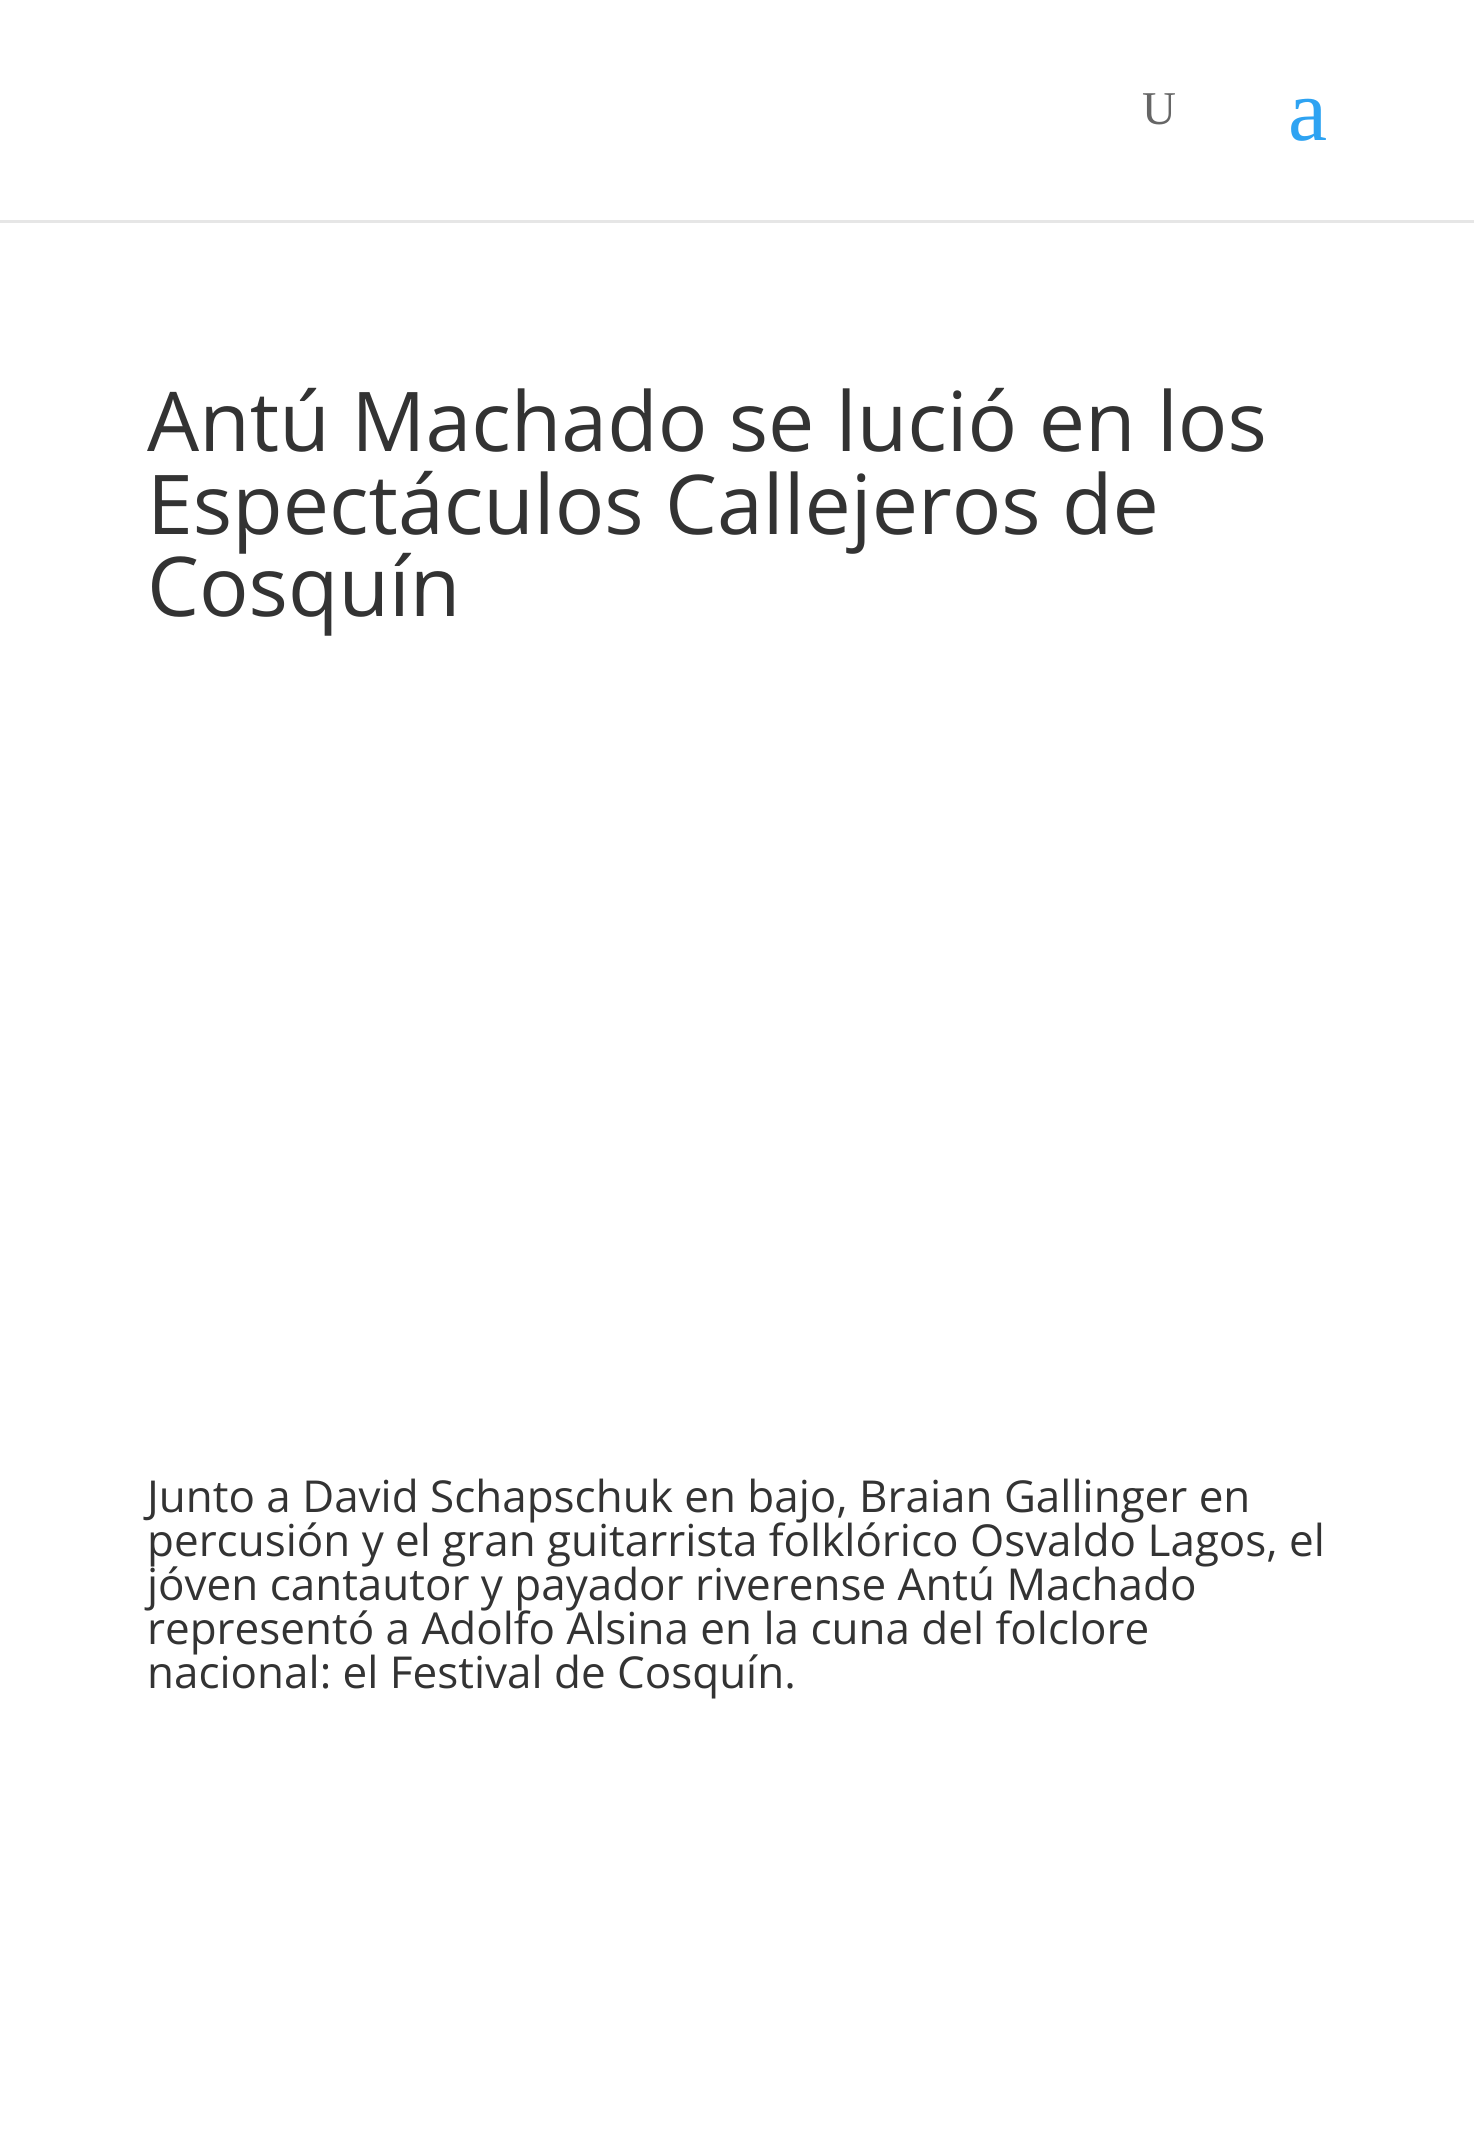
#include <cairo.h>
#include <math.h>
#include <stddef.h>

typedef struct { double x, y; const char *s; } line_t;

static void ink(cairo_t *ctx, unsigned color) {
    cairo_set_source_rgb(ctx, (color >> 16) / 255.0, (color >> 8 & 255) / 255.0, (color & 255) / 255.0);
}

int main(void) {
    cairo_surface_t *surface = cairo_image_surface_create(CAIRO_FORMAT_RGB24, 1474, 2150);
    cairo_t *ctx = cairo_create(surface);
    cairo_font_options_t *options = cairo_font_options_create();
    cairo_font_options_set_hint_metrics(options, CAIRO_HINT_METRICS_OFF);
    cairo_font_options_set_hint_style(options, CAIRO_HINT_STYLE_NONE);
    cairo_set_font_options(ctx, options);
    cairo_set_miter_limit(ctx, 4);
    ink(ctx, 0xFFFFFF);
    cairo_paint(ctx);
    ink(ctx, 0xE6E6E6);
    cairo_rectangle(ctx, 0, 220, 1474, 3);
    cairo_fill(ctx);
    cairo_select_font_face(ctx, "Liberation Serif", CAIRO_FONT_SLANT_NORMAL, CAIRO_FONT_WEIGHT_NORMAL);
    cairo_set_font_size(ctx, 47);
    ink(ctx, 0x666666);
    cairo_move_to(ctx, 1142, 124);
    cairo_show_text(ctx, "U");
    cairo_set_font_size(ctx, 88);
    ink(ctx, 0x2EA3F2);
    cairo_move_to(ctx, 1288, 140);
    cairo_show_text(ctx, "a");
    cairo_select_font_face(ctx, "Open Sans", CAIRO_FONT_SLANT_NORMAL, CAIRO_FONT_WEIGHT_NORMAL);
    cairo_set_font_size(ctx, 82.5);
    ink(ctx, 0x333333);
    {
        static const line_t items[] = {
            {147, 451, "Antú Machado se lució en los"},
            {147, 534, "Espectáculos Callejeros de"},
            {147, 616, "Cosquín"},
        };
        for (size_t i = 0; i < sizeof items / sizeof *items; i++) {
            cairo_move_to(ctx, items[i].x, items[i].y);
            cairo_show_text(ctx, items[i].s);
        }
    }
    cairo_set_font_size(ctx, 44);
    {
        static const line_t items[] = {
            {147, 1512, "Junto a David Schapschuk en bajo, Braian Gallinger en"},
            {147, 1556, "percusión y el gran guitarrista folklórico Osvaldo Lagos, el"},
            {147, 1600, "jóven cantautor y payador riverense Antú Machado"},
            {147, 1644, "representó a Adolfo Alsina en la cuna del folclore"},
            {147, 1688, "nacional: el Festival de Cosquín."},
        };
        for (size_t i = 0; i < sizeof items / sizeof *items; i++) {
            cairo_move_to(ctx, items[i].x, items[i].y);
            cairo_show_text(ctx, items[i].s);
        }
    }
    cairo_surface_write_to_png(surface, "image.png");
    cairo_font_options_destroy(options);
    cairo_destroy(ctx);
    cairo_surface_destroy(surface);
    return 0;
}
